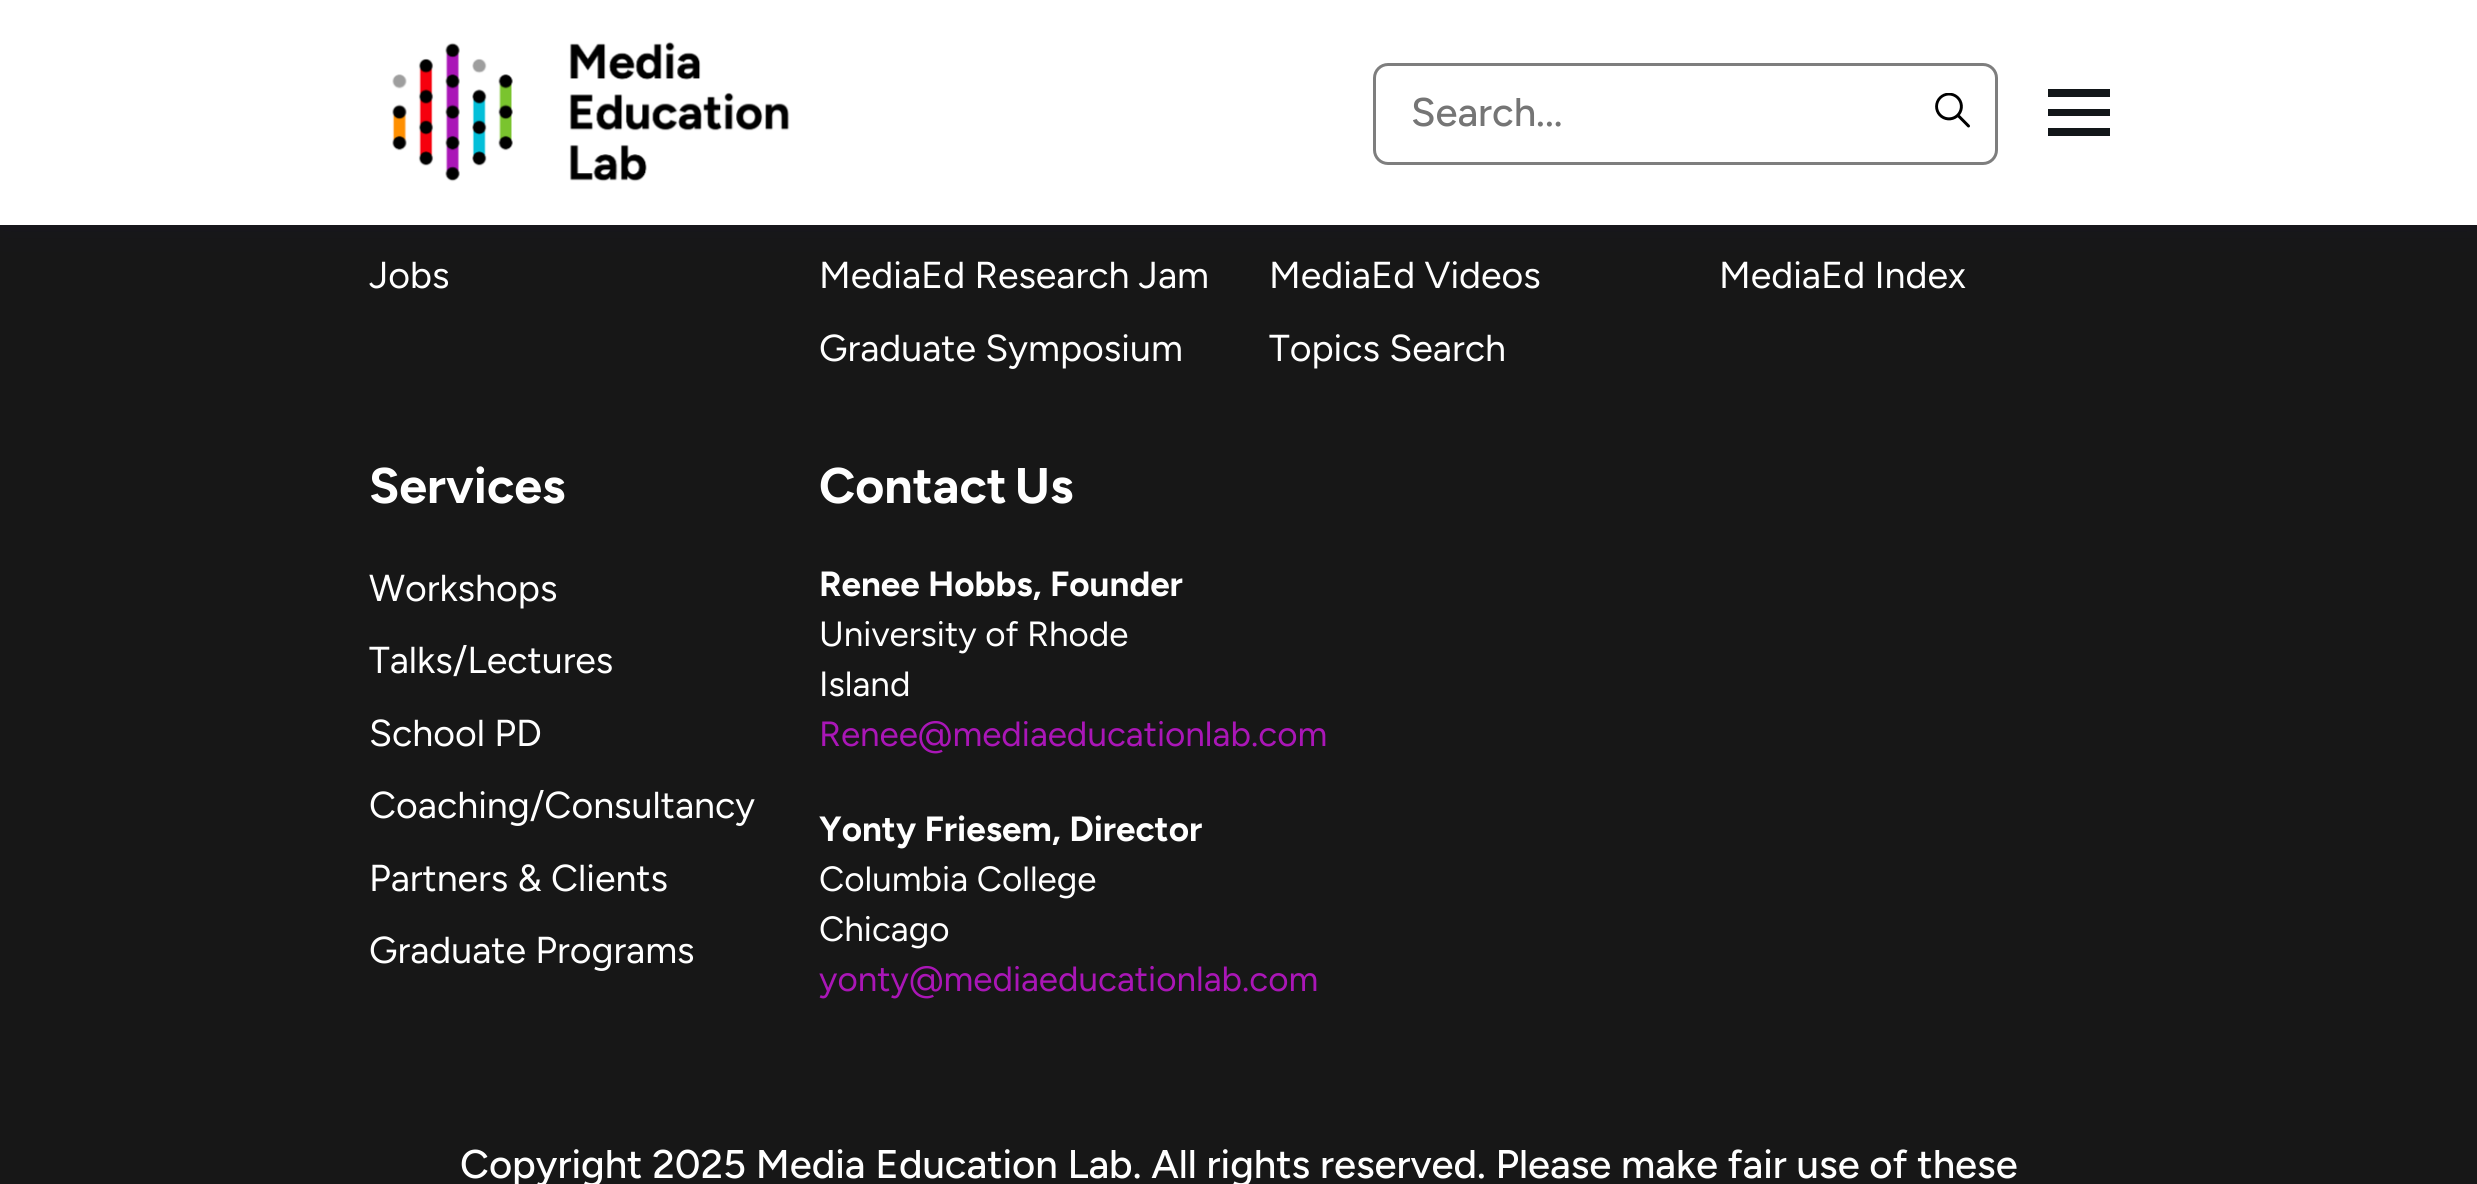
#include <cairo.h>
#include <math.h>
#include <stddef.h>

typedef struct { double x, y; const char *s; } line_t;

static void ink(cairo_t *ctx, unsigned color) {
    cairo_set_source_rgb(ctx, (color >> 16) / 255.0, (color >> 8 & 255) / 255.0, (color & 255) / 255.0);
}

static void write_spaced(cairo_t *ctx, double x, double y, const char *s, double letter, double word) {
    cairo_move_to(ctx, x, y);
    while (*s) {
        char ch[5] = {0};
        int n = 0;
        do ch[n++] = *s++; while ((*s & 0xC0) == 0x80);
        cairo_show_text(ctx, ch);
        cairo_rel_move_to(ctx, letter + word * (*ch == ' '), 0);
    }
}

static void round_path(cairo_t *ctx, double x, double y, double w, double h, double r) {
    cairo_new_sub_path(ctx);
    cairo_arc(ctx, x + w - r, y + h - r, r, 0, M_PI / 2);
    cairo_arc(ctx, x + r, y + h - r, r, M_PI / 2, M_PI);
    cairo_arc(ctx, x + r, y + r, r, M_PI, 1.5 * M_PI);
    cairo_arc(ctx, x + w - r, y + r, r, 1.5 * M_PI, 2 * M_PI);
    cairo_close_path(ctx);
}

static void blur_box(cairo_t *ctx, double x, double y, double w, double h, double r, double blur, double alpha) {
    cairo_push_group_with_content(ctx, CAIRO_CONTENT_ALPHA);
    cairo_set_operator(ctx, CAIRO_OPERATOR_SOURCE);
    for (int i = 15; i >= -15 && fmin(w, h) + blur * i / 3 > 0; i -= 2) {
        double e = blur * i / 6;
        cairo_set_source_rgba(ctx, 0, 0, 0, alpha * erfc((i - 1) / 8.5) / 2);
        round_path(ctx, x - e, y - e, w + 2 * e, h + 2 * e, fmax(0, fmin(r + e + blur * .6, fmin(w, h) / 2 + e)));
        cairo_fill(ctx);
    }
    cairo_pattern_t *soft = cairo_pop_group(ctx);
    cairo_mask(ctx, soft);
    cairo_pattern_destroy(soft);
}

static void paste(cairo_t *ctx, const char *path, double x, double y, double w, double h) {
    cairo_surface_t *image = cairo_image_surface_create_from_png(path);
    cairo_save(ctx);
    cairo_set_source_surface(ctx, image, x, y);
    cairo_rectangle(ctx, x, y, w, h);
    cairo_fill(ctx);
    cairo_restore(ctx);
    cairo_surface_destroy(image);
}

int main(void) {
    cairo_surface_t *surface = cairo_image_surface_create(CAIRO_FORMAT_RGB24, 2477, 1184);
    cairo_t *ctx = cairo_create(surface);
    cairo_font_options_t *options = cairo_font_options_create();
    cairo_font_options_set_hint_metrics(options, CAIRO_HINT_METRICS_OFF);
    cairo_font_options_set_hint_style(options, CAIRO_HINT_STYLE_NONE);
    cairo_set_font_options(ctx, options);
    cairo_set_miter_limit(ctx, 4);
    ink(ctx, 0x171717);
    cairo_paint(ctx);
    ink(ctx, 0x130F40);
    blur_box(ctx, 0, -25, 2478, 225, 0, 21, 1);
    ink(ctx, 0xFFFFFF);
    cairo_rectangle(ctx, 0, 0, 2477, 225);
    cairo_fill(ctx);
    paste(ctx, "media/1.png", 392, 41, 398, 141);
    round_path(ctx, 1374.5, 64.5, 622, 99, 13.5);
    ink(ctx, 0x7E7E7E);
    cairo_set_line_width(ctx, 3);
    cairo_stroke(ctx);
    cairo_select_font_face(ctx, "Figtree Medium", CAIRO_FONT_SLANT_NORMAL, CAIRO_FONT_WEIGHT_NORMAL);
    cairo_set_font_size(ctx, 40);
    ink(ctx, 0x757575);
    cairo_move_to(ctx, 1411, 126);
    cairo_show_text(ctx, "Search...");
    paste(ctx, "media/2.png", 1935, 93, 35, 35);
    cairo_save(ctx);
    cairo_rectangle(ctx, 2048, 0, 62, 225);
    cairo_clip(ctx);
    ink(ctx, 0x121619);
    cairo_new_path(ctx);
    cairo_move_to(ctx, 2047, 136);
    cairo_line_to(ctx, 2110, 136);
    cairo_line_to(ctx, 2110, 128);
    cairo_line_to(ctx, 2047, 128);
    cairo_close_path(ctx);
    cairo_move_to(ctx, 2047, 116);
    cairo_line_to(ctx, 2110, 116);
    cairo_line_to(ctx, 2110, 109);
    cairo_line_to(ctx, 2047, 109);
    cairo_close_path(ctx);
    cairo_move_to(ctx, 2047, 89);
    cairo_line_to(ctx, 2047, 97);
    cairo_line_to(ctx, 2110, 97);
    cairo_line_to(ctx, 2110, 89);
    cairo_close_path(ctx);
    cairo_fill(ctx);
    cairo_restore(ctx);
    cairo_select_font_face(ctx, "Figtree", CAIRO_FONT_SLANT_NORMAL, CAIRO_FONT_WEIGHT_NORMAL);
    cairo_set_font_size(ctx, 37.5);
    ink(ctx, 0xFFFFFF);
    {
        static const line_t items[] = {
            {369, 288, "Jobs"},
            {819, 288, "MediaEd Research Jam"},
            {819, 361, "Graduate Symposium"},
            {1269, 288, "MediaEd Videos"},
            {1269, 361, "Topics Search"},
            {1719, 288, "MediaEd Index"},
        };
        for (size_t i = 0; i < sizeof items / sizeof *items; i++) {
            cairo_move_to(ctx, items[i].x, items[i].y);
            cairo_show_text(ctx, items[i].s);
        }
    }
    cairo_select_font_face(ctx, "Figtree", CAIRO_FONT_SLANT_NORMAL, CAIRO_FONT_WEIGHT_BOLD);
    cairo_set_font_size(ctx, 50);
    cairo_move_to(ctx, 369, 503);
    cairo_show_text(ctx, "Services");
    cairo_select_font_face(ctx, "Figtree", CAIRO_FONT_SLANT_NORMAL, CAIRO_FONT_WEIGHT_NORMAL);
    cairo_set_font_size(ctx, 37.5);
    {
        static const line_t items[] = {
            {369, 601, "Workshops"},
            {369, 673, "Talks/Lectures"},
            {369, 746, "School PD"},
            {369, 818, "Coaching/Consultancy"},
            {369, 891, "Partners & Clients"},
            {369, 963, "Graduate Programs"},
        };
        for (size_t i = 0; i < sizeof items / sizeof *items; i++) {
            cairo_move_to(ctx, items[i].x, items[i].y);
            cairo_show_text(ctx, items[i].s);
        }
    }
    cairo_select_font_face(ctx, "Figtree", CAIRO_FONT_SLANT_NORMAL, CAIRO_FONT_WEIGHT_BOLD);
    cairo_set_font_size(ctx, 50);
    write_spaced(ctx, 819, 503, "Contact Us", 0, -4);
    cairo_set_font_size(ctx, 35);
    cairo_move_to(ctx, 819, 596);
    cairo_show_text(ctx, "Renee Hobbs, Founder");
    cairo_select_font_face(ctx, "Figtree", CAIRO_FONT_SLANT_NORMAL, CAIRO_FONT_WEIGHT_NORMAL);
    cairo_move_to(ctx, 819, 646);
    cairo_show_text(ctx, "University of Rhode");
    cairo_move_to(ctx, 819, 696);
    cairo_show_text(ctx, "Island");
    ink(ctx, 0xAA16B7);
    cairo_move_to(ctx, 819, 746);
    cairo_show_text(ctx, "Renee@mediaeducationlab.com");
    cairo_select_font_face(ctx, "Figtree", CAIRO_FONT_SLANT_NORMAL, CAIRO_FONT_WEIGHT_BOLD);
    ink(ctx, 0xFFFFFF);
    cairo_move_to(ctx, 819, 841);
    cairo_show_text(ctx, "Yonty Friesem, Director");
    cairo_select_font_face(ctx, "Figtree", CAIRO_FONT_SLANT_NORMAL, CAIRO_FONT_WEIGHT_NORMAL);
    cairo_move_to(ctx, 819, 891);
    cairo_show_text(ctx, "Columbia College");
    cairo_move_to(ctx, 819, 941);
    cairo_show_text(ctx, "Chicago");
    ink(ctx, 0xAA16B7);
    cairo_move_to(ctx, 819, 991);
    cairo_show_text(ctx, "yonty@mediaeducationlab.com");
    cairo_select_font_face(ctx, "Figtree Medium", CAIRO_FONT_SLANT_NORMAL, CAIRO_FONT_WEIGHT_NORMAL);
    cairo_set_font_size(ctx, 40);
    ink(ctx, 0xFFFFFF);
    cairo_move_to(ctx, 460, 1178);
    cairo_show_text(ctx, "Copyright 2025 Media Education Lab. All rights reserved. Please make fair use of these");
    cairo_surface_write_to_png(surface, "image.png");
    cairo_font_options_destroy(options);
    cairo_destroy(ctx);
    cairo_surface_destroy(surface);
    return 0;
}
